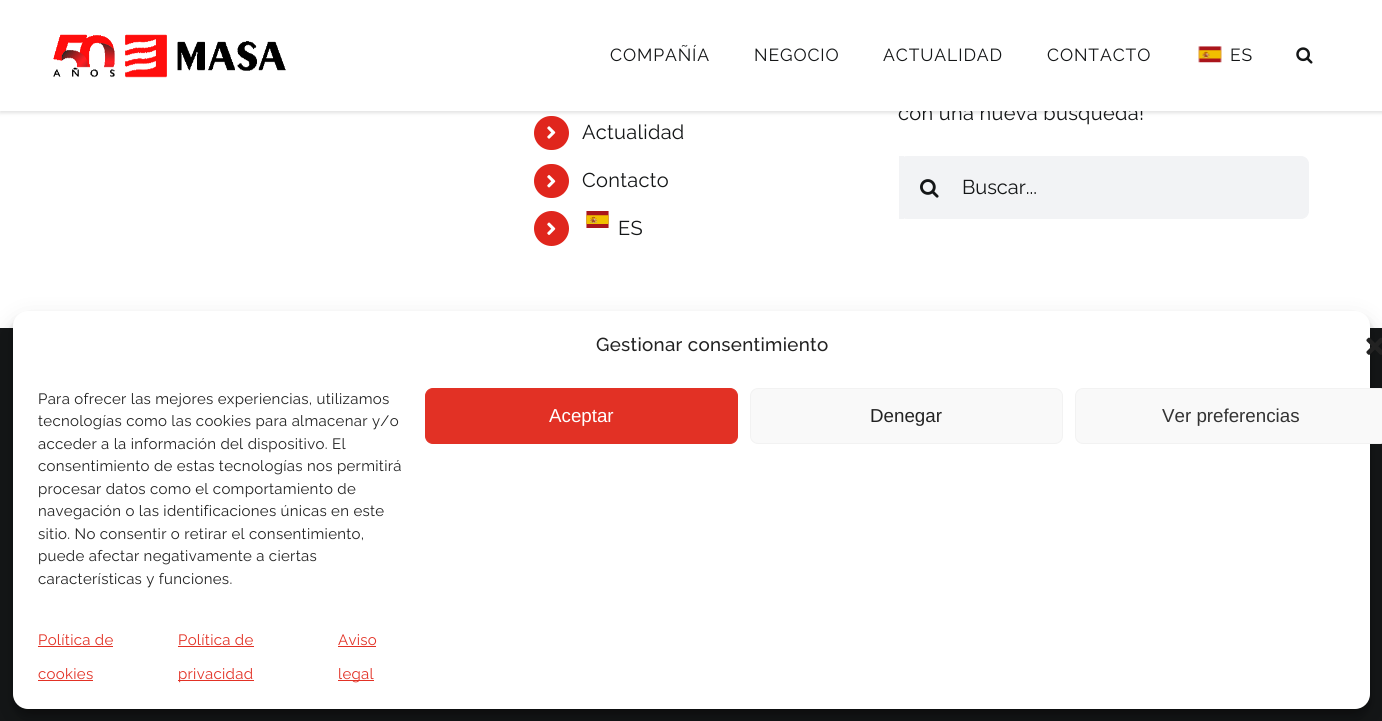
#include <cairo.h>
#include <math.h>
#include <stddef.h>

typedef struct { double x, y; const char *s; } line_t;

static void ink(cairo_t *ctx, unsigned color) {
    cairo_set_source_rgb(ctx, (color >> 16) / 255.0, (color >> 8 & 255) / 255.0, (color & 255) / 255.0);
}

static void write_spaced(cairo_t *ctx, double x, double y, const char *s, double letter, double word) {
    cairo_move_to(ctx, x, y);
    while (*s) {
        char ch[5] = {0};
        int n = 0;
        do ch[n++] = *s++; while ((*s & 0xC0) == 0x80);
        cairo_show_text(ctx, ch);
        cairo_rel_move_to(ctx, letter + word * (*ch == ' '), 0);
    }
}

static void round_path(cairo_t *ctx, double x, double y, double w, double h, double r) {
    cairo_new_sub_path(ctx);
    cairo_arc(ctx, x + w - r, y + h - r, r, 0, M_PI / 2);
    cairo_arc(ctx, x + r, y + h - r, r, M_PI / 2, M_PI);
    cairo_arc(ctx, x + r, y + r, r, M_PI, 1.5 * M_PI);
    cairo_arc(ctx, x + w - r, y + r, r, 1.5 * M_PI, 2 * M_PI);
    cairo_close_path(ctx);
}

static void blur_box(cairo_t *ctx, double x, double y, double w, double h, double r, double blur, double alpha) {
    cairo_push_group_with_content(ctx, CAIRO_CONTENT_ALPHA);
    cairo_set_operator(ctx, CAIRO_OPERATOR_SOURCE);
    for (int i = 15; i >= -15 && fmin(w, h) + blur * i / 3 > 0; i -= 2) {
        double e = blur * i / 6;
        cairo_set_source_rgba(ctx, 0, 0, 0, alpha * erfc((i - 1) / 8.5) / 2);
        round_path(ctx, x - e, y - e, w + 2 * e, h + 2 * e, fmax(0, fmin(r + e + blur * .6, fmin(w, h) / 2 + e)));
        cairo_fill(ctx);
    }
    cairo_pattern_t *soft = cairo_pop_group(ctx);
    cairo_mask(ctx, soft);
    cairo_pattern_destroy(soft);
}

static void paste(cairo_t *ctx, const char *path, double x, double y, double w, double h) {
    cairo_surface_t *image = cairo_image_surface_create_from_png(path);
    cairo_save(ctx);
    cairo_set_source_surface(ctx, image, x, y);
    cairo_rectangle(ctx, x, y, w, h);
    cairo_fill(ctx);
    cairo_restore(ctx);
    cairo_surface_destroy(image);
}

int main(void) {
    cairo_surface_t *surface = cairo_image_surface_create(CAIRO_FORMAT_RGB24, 1382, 721);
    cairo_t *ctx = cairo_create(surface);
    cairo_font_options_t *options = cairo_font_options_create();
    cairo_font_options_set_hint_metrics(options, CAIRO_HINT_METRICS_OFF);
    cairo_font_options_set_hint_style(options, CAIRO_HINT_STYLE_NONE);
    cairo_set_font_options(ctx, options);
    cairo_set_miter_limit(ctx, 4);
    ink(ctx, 0xFFFFFF);
    cairo_paint(ctx);
    ink(ctx, 0xE0261D);
    round_path(ctx, 534, 116, 35, 34, 17);
    cairo_fill(ctx);
    ink(ctx, 0x000000);
    blur_box(ctx, 0, 1, 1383, 112, 0, 2, 0.12);
    cairo_select_font_face(ctx, "Raleway", CAIRO_FONT_SLANT_NORMAL, CAIRO_FONT_WEIGHT_NORMAL);
    cairo_set_font_size(ctx, 20);
    ink(ctx, 0x141617);
    write_spaced(ctx, 898, 120, "con una nueva búsqueda!", 0.3, 0);
    ink(ctx, 0xFFFFFF);
    cairo_rectangle(ctx, 0, 0, 1382, 111);
    cairo_fill(ctx);
    paste(ctx, "media/1.png", 53, 34, 233, 44);
    cairo_set_font_size(ctx, 17.5);
    ink(ctx, 0x141617);
    {
        static const line_t items[] = {
            {610, 61, "COMPAÑÍA"},
            {754, 61, "NEGOCIO"},
            {883, 61, "ACTUALIDAD"},
            {1047, 61, "CONTACTO"},
        };
        for (size_t i = 0; i < sizeof items / sizeof *items; i++) {
            write_spaced(ctx, items[i].x, items[i].y, items[i].s, 0.9, 0);
        }
    }
    paste(ctx, "media/2.png", 1198, 46, 24, 17);
    write_spaced(ctx, 1230, 61, "ES", 0.9, 0);
    paste(ctx, "media/3.png", 1296, 47, 17, 17);
    paste(ctx, "media/4.png", 547, 126, 9, 13);
    cairo_set_font_size(ctx, 20);
    write_spaced(ctx, 582, 139, "Actualidad", 0.3, 0);
    ink(ctx, 0xE0261D);
    round_path(ctx, 534, 164, 35, 34, 17);
    cairo_fill(ctx);
    paste(ctx, "media/5.png", 547, 175, 9, 13);
    ink(ctx, 0x141617);
    write_spaced(ctx, 582, 187, "Contacto", 0.3, 0);
    ink(ctx, 0xE0261D);
    cairo_new_path(ctx);
    cairo_arc(ctx, 551.5, 228.5, 17.5, 0, 2 * M_PI);
    cairo_fill(ctx);
    paste(ctx, "media/6.png", 547, 222, 9, 13);
    paste(ctx, "media/7.png", 586, 211, 23, 17);
    ink(ctx, 0x141617);
    write_spaced(ctx, 618, 235, "ES", 0.3, 0);
    ink(ctx, 0xF2F3F5);
    round_path(ctx, 899.5, 156.5, 409, 62, 7.5);
    cairo_fill_preserve(ctx);
    cairo_set_line_width(ctx, 1);
    cairo_stroke(ctx);
    cairo_rectangle(ctx, 899, 156, 5, 63);
    cairo_fill(ctx);
    paste(ctx, "media/8.png", 920, 179, 19, 19);
    ink(ctx, 0x141617);
    cairo_move_to(ctx, 962, 194);
    cairo_show_text(ctx, "Buscar...");
    cairo_rectangle(ctx, 0, 328, 1382, 393);
    cairo_fill(ctx);
    ink(ctx, 0x000000);
    blur_box(ctx, 13, 319, 1357, 397, 15, 4, 0.23);
    blur_box(ctx, 13, 324, 1357, 397, 15, 12.5, 0.19);
    ink(ctx, 0xFFFFFF);
    round_path(ctx, 13, 311, 1357, 398, 15);
    cairo_fill(ctx);
    cairo_select_font_face(ctx, "Raleway Medium", CAIRO_FONT_SLANT_NORMAL, CAIRO_FONT_WEIGHT_NORMAL);
    cairo_set_font_size(ctx, 18.75);
    ink(ctx, 0x222222);
    write_spaced(ctx, 596, 351, "Gestionar consentimiento", 0.3, 0);
    paste(ctx, "media/9.png", 1366, 337, 16, 18);
    cairo_select_font_face(ctx, "Raleway", CAIRO_FONT_SLANT_NORMAL, CAIRO_FONT_WEIGHT_NORMAL);
    cairo_set_font_size(ctx, 15);
    {
        static const line_t items[] = {
            {38, 404, "Para ofrecer las mejores experiencias, utilizamos"},
            {38, 426, "tecnologías como las cookies para almacenar y/o"},
            {38, 449, "acceder a la información del dispositivo. El"},
            {38, 471, "consentimiento de estas tecnologías nos permitirá"},
            {38, 494, "procesar datos como el comportamiento de"},
            {38, 516, "navegación o las identificaciones únicas en este"},
            {38, 539, "sitio. No consentir o retirar el consentimiento,"},
            {38, 561, "puede afectar negativamente a ciertas"},
            {38, 584, "características y funciones."},
        };
        for (size_t i = 0; i < sizeof items / sizeof *items; i++) {
            write_spaced(ctx, items[i].x, items[i].y, items[i].s, 0.3, 0);
        }
    }
    ink(ctx, 0xE23125);
    round_path(ctx, 425.5, 388.5, 312, 55, 7.5);
    cairo_fill_preserve(ctx);
    cairo_stroke(ctx);
    cairo_select_font_face(ctx, "Liberation Sans", CAIRO_FONT_SLANT_NORMAL, CAIRO_FONT_WEIGHT_NORMAL);
    cairo_set_font_size(ctx, 18.75);
    ink(ctx, 0xFFFFFF);
    cairo_move_to(ctx, 549, 422);
    cairo_show_text(ctx, "Aceptar");
    ink(ctx, 0xF9F9F9);
    round_path(ctx, 750.5, 388.5, 312, 55, 7.5);
    cairo_fill_preserve(ctx);
    ink(ctx, 0xF2F2F2);
    cairo_stroke(ctx);
    ink(ctx, 0x222222);
    cairo_move_to(ctx, 870, 422);
    cairo_show_text(ctx, "Denegar");
    ink(ctx, 0xF9F9F9);
    round_path(ctx, 1075.5, 388.5, 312, 55, 7.5);
    cairo_fill_preserve(ctx);
    ink(ctx, 0xF2F2F2);
    cairo_stroke(ctx);
    ink(ctx, 0x333333);
    cairo_move_to(ctx, 1162, 422);
    cairo_show_text(ctx, "Ver preferencias");
    cairo_select_font_face(ctx, "Raleway", CAIRO_FONT_SLANT_NORMAL, CAIRO_FONT_WEIGHT_NORMAL);
    cairo_set_font_size(ctx, 15);
    ink(ctx, 0xE23125);
    write_spaced(ctx, 38, 645, "Política de", 0.3, 0);
    cairo_rectangle(ctx, 38, 646, 75, 1);
    cairo_fill(ctx);
    write_spaced(ctx, 38, 679, "cookies", 0.3, 0);
    cairo_rectangle(ctx, 38, 680, 55, 1);
    cairo_fill(ctx);
    write_spaced(ctx, 178, 645, "Política de", 0.3, 0);
    cairo_rectangle(ctx, 178, 646, 76, 1);
    cairo_fill(ctx);
    cairo_rectangle(ctx, 178, 680, 76, 1);
    cairo_fill(ctx);
    write_spaced(ctx, 178, 679, "privacidad", 0.3, 0);
    write_spaced(ctx, 338, 645, "Aviso", 0.3, 0);
    cairo_rectangle(ctx, 338, 646, 38, 1);
    cairo_fill(ctx);
    cairo_rectangle(ctx, 338, 680, 36, 1);
    cairo_fill(ctx);
    write_spaced(ctx, 338, 679, "legal", 0.3, 0);
    cairo_surface_write_to_png(surface, "image.png");
    cairo_font_options_destroy(options);
    cairo_destroy(ctx);
    cairo_surface_destroy(surface);
    return 0;
}
